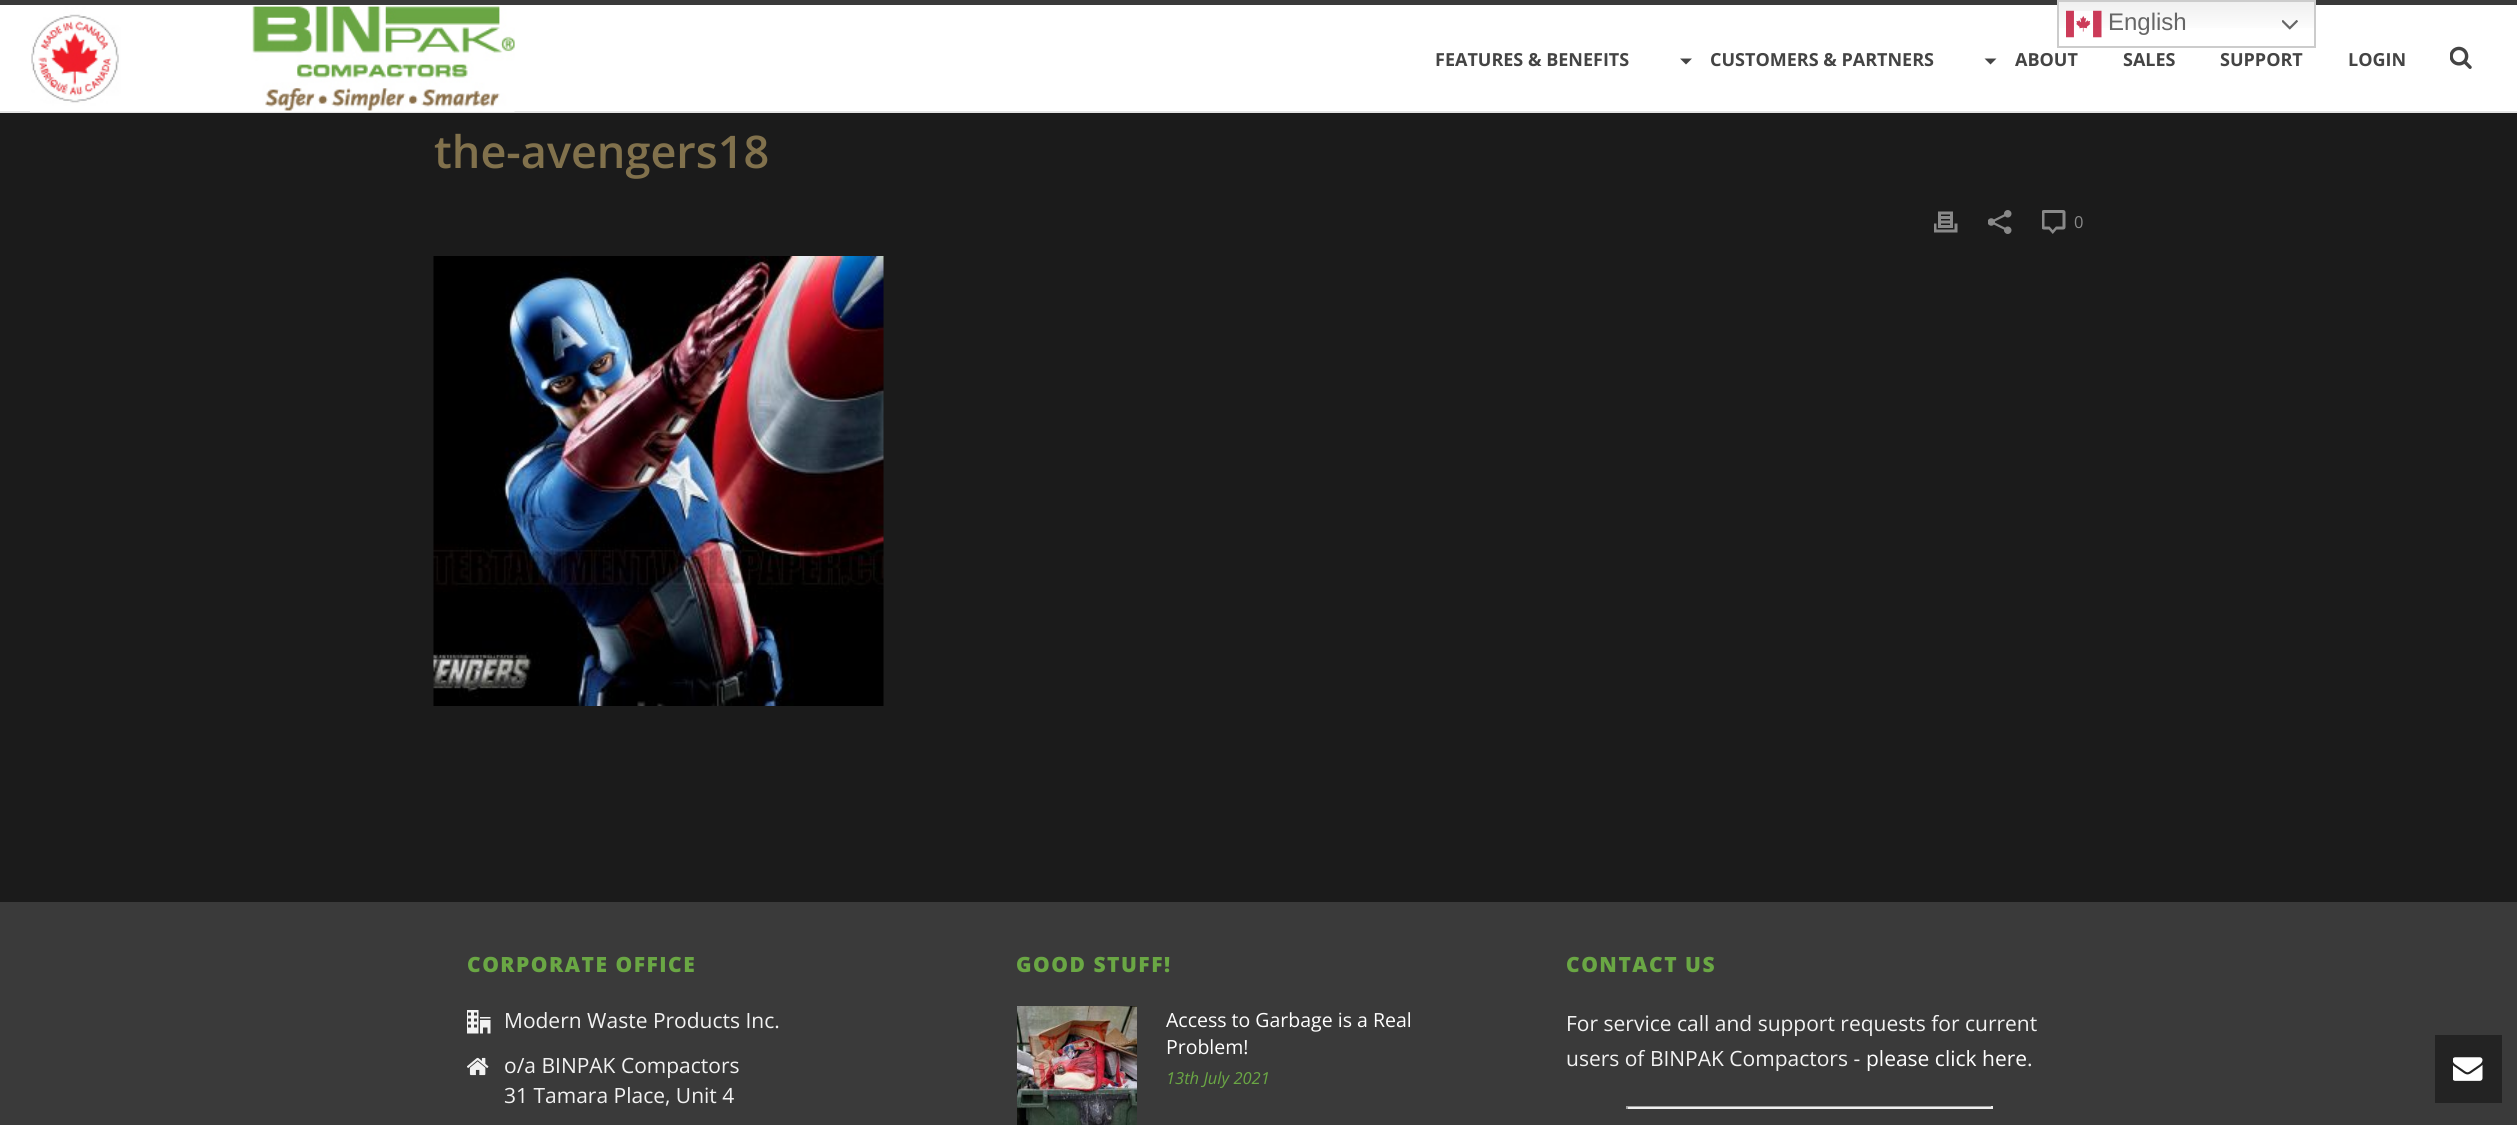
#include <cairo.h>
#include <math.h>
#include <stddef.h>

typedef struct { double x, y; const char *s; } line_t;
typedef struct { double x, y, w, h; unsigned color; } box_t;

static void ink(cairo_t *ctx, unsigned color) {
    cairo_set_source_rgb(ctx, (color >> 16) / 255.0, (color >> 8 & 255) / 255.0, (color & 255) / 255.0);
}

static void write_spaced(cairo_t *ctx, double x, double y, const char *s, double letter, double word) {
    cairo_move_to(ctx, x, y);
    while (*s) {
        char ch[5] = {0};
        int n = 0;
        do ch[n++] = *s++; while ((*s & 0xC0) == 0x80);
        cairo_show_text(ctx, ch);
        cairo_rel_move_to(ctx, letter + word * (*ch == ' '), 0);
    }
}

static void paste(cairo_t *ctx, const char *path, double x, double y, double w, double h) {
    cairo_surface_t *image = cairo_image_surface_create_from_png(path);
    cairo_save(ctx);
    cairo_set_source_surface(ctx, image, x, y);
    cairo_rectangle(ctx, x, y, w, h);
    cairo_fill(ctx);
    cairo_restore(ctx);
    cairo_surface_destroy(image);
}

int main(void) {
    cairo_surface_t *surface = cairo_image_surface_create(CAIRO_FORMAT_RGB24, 2517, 1125);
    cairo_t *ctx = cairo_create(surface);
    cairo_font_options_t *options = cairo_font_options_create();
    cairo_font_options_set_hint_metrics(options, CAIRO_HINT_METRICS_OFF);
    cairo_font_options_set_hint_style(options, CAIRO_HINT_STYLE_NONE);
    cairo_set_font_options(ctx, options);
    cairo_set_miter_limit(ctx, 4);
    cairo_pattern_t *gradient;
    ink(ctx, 0x3A3A3A);
    cairo_paint(ctx);
    ink(ctx, 0xFFFFFF);
    cairo_rectangle(ctx, 0, 5, 2517, 106);
    cairo_fill(ctx);
    gradient = cairo_pattern_create_linear(2186, 0, 2186, 48);
    cairo_pattern_add_color_stop_rgba(gradient, 0, 0.937, 0.937, 0.937, 1);
    cairo_pattern_add_color_stop_rgba(gradient, 0.7, 1, 1, 1, 1);
    cairo_set_source(ctx, gradient);
    cairo_pattern_destroy(gradient);
    cairo_rectangle(ctx, 2059, 2, 255, 26);
    cairo_fill(ctx);
    cairo_rectangle(ctx, 2058, 1, 257, 46);
    ink(ctx, 0xCCCCCC);
    cairo_stroke(ctx);
    paste(ctx, "media/1.png", 2066, 10, 36, 28);
    cairo_select_font_face(ctx, "Liberation Sans", CAIRO_FONT_SLANT_NORMAL, CAIRO_FONT_WEIGHT_NORMAL);
    cairo_set_font_size(ctx, 24);
    ink(ctx, 0x666666);
    cairo_move_to(ctx, 2108, 30);
    cairo_show_text(ctx, "English");
    paste(ctx, "media/2.png", 2282, 20, 16, 10);
    ink(ctx, 0xE5E5E5);
    cairo_rectangle(ctx, 0, 111, 2517, 2);
    cairo_fill(ctx);
    paste(ctx, "media/3.png", 30, 6, 485, 106);
    cairo_select_font_face(ctx, "Open Sans", CAIRO_FONT_SLANT_NORMAL, CAIRO_FONT_WEIGHT_BOLD);
    cairo_set_font_size(ctx, 18);
    ink(ctx, 0x444444);
    cairo_move_to(ctx, 1435, 66);
    cairo_show_text(ctx, "FEATURES & BENEFITS");
    cairo_new_path(ctx);
    cairo_move_to(ctx, 1680, 58.5);
    cairo_line_to(ctx, 1686, 64.5);
    cairo_line_to(ctx, 1692, 58.5);
    cairo_close_path(ctx);
    cairo_fill(ctx);
    cairo_move_to(ctx, 1710, 66);
    cairo_show_text(ctx, "CUSTOMERS & PARTNERS");
    cairo_new_path(ctx);
    cairo_move_to(ctx, 1984.5, 58.5);
    cairo_line_to(ctx, 1990.5, 64.5);
    cairo_line_to(ctx, 1996.5, 58.5);
    cairo_close_path(ctx);
    cairo_fill(ctx);
    {
        static const line_t items[] = {
            {2015, 66, "ABOUT"},
            {2123, 66, "SALES"},
            {2220, 66, "SUPPORT"},
            {2348, 66, "LOGIN"},
        };
        for (size_t i = 0; i < sizeof items / sizeof *items; i++) {
            cairo_move_to(ctx, items[i].x, items[i].y);
            cairo_show_text(ctx, items[i].s);
        }
    }
    paste(ctx, "media/4.png", 2450, 46, 22, 23);
    ink(ctx, 0x1B1B1B);
    cairo_rectangle(ctx, 0, 113, 2517, 789);
    cairo_fill(ctx);
    cairo_select_font_face(ctx, "Open Sans SemiBold", CAIRO_FONT_SLANT_NORMAL, CAIRO_FONT_WEIGHT_NORMAL);
    cairo_set_font_size(ctx, 45);
    ink(ctx, 0x81714C);
    cairo_move_to(ctx, 434, 168);
    cairo_show_text(ctx, "the-avengers18");
    paste(ctx, "media/5.png", 1934, 211, 24, 22);
    paste(ctx, "media/6.png", 1988, 210, 24, 24);
    paste(ctx, "media/7.png", 2042, 210, 24, 24);
    cairo_select_font_face(ctx, "Open Sans", CAIRO_FONT_SLANT_NORMAL, CAIRO_FONT_WEIGHT_NORMAL);
    cairo_set_font_size(ctx, 16.5);
    ink(ctx, 0x898989);
    cairo_move_to(ctx, 2074, 228);
    cairo_show_text(ctx, "0");
    paste(ctx, "media/8.png", 433, 256, 451, 450);
    cairo_select_font_face(ctx, "Open Sans ExtraBold", CAIRO_FONT_SLANT_NORMAL, CAIRO_FONT_WEIGHT_NORMAL);
    cairo_set_font_size(ctx, 21);
    ink(ctx, 0x6AA744);
    write_spaced(ctx, 467, 972, "CORPORATE OFFICE", 1.5, 0);
    paste(ctx, "media/9.png", 467, 1010, 24, 24);
    cairo_select_font_face(ctx, "Open Sans", CAIRO_FONT_SLANT_NORMAL, CAIRO_FONT_WEIGHT_NORMAL);
    ink(ctx, 0xF2F2F2);
    cairo_move_to(ctx, 504, 1028);
    cairo_show_text(ctx, "Modern Waste Products Inc.");
    paste(ctx, "media/10.png", 467, 1057, 22, 19);
    cairo_move_to(ctx, 504, 1073);
    cairo_show_text(ctx, "o/a BINPAK Compactors");
    cairo_move_to(ctx, 504, 1103);
    cairo_show_text(ctx, "31 Tamara Place, Unit 4");
    cairo_select_font_face(ctx, "Open Sans ExtraBold", CAIRO_FONT_SLANT_NORMAL, CAIRO_FONT_WEIGHT_NORMAL);
    ink(ctx, 0x6AA744);
    write_spaced(ctx, 1016, 972, "GOOD STUFF!", 1.5, 0);
    paste(ctx, "media/11.png", 1017, 1006, 120, 119);
    cairo_select_font_face(ctx, "Open Sans", CAIRO_FONT_SLANT_NORMAL, CAIRO_FONT_WEIGHT_NORMAL);
    cairo_set_font_size(ctx, 19.5);
    ink(ctx, 0xFFFFFF);
    cairo_move_to(ctx, 1166, 1027);
    cairo_show_text(ctx, "Access to Garbage is a Real");
    cairo_move_to(ctx, 1166, 1054);
    cairo_show_text(ctx, "Problem!");
    cairo_select_font_face(ctx, "Open Sans", CAIRO_FONT_SLANT_ITALIC, CAIRO_FONT_WEIGHT_NORMAL);
    cairo_set_font_size(ctx, 16.5);
    ink(ctx, 0x6AA744);
    cairo_move_to(ctx, 1166, 1084);
    cairo_show_text(ctx, "13th July 2021");
    cairo_select_font_face(ctx, "Open Sans ExtraBold", CAIRO_FONT_SLANT_NORMAL, CAIRO_FONT_WEIGHT_NORMAL);
    cairo_set_font_size(ctx, 21);
    write_spaced(ctx, 1566, 972, "CONTACT US", 1.5, 0);
    cairo_select_font_face(ctx, "Open Sans", CAIRO_FONT_SLANT_NORMAL, CAIRO_FONT_WEIGHT_NORMAL);
    ink(ctx, 0xF2F2F2);
    cairo_move_to(ctx, 1566, 1031);
    cairo_show_text(ctx, "For service call and support requests for current");
    cairo_move_to(ctx, 1566, 1066);
    cairo_show_text(ctx, "users of BINPAK Compactors -");
    ink(ctx, 0xFFFFFF);
    cairo_move_to(ctx, 1866, 1066);
    cairo_show_text(ctx, "please click here");
    ink(ctx, 0xF2F2F2);
    cairo_move_to(ctx, 2027, 1066);
    cairo_show_text(ctx, ".");
    {
        static const box_t items[] = {
            {1626, 1106, 366, 1, 0x9F9F9F},
            {1991, 1106, 2, 3, 0xEEEEEE},
            {1626, 1107, 366, 2, 0xEEEEEE},
            {1626, 1106, 2, 3, 0x9F9F9F},
            {2435, 1035, 67, 68, 0x232323},
        };
        for (size_t i = 0; i < sizeof items / sizeof *items; i++) {
            ink(ctx, items[i].color);
            cairo_rectangle(ctx, items[i].x, items[i].y, items[i].w, items[i].h);
            cairo_fill(ctx);
        }
    }
    paste(ctx, "media/12.png", 2453, 1057, 30, 24);
    cairo_surface_write_to_png(surface, "image.png");
    cairo_font_options_destroy(options);
    cairo_destroy(ctx);
    cairo_surface_destroy(surface);
    return 0;
}
